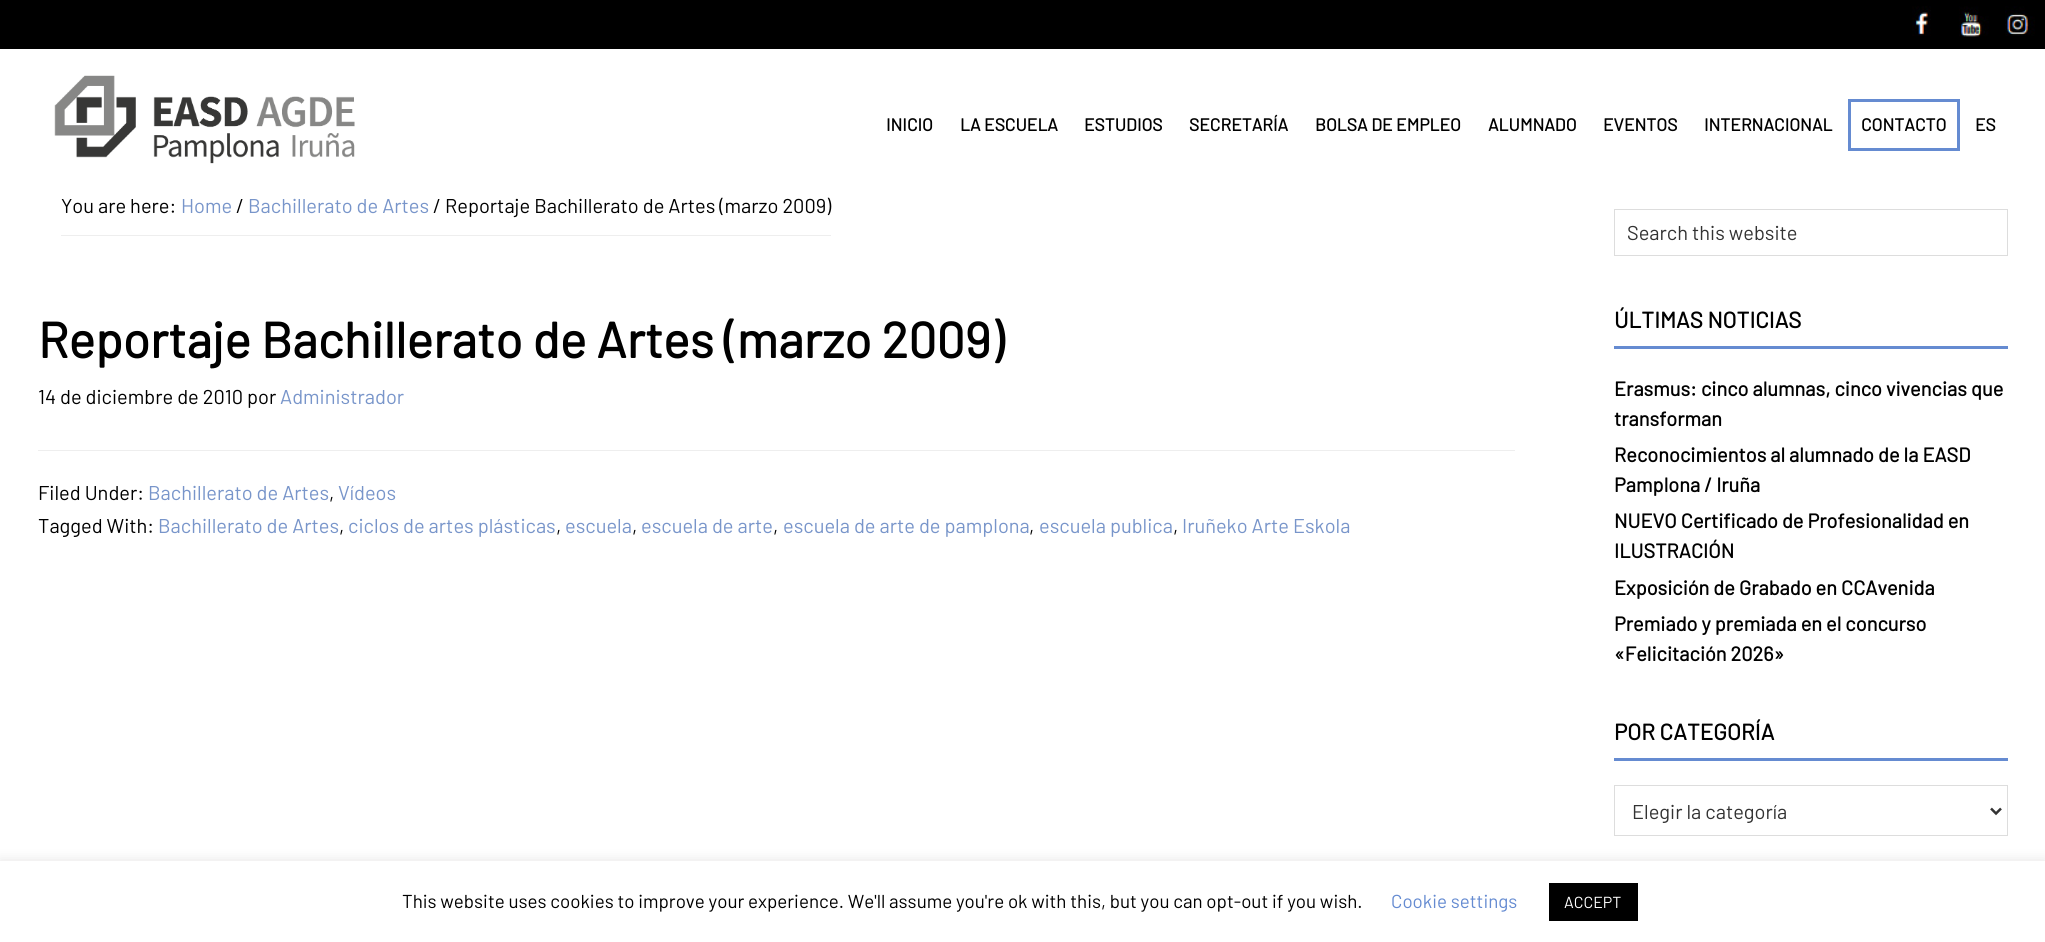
#include <cairo.h>
#include <math.h>
#include <stddef.h>

typedef struct { double x, y; const char *s; } line_t;

static void ink(cairo_t *ctx, unsigned color) {
    cairo_set_source_rgb(ctx, (color >> 16) / 255.0, (color >> 8 & 255) / 255.0, (color & 255) / 255.0);
}

static void round_path(cairo_t *ctx, double x, double y, double w, double h, double r) {
    cairo_new_sub_path(ctx);
    cairo_arc(ctx, x + w - r, y + h - r, r, 0, M_PI / 2);
    cairo_arc(ctx, x + r, y + h - r, r, M_PI / 2, M_PI);
    cairo_arc(ctx, x + r, y + r, r, M_PI, 1.5 * M_PI);
    cairo_arc(ctx, x + w - r, y + r, r, 1.5 * M_PI, 2 * M_PI);
    cairo_close_path(ctx);
}

static void blur_box(cairo_t *ctx, double x, double y, double w, double h, double r, double blur, double alpha) {
    cairo_push_group_with_content(ctx, CAIRO_CONTENT_ALPHA);
    cairo_set_operator(ctx, CAIRO_OPERATOR_SOURCE);
    for (int i = 15; i >= -15 && fmin(w, h) + blur * i / 3 > 0; i -= 2) {
        double e = blur * i / 6;
        cairo_set_source_rgba(ctx, 0, 0, 0, alpha * erfc((i - 1) / 8.5) / 2);
        round_path(ctx, x - e, y - e, w + 2 * e, h + 2 * e, fmax(0, fmin(r + e + blur * .6, fmin(w, h) / 2 + e)));
        cairo_fill(ctx);
    }
    cairo_pattern_t *soft = cairo_pop_group(ctx);
    cairo_mask(ctx, soft);
    cairo_pattern_destroy(soft);
}

static void paste(cairo_t *ctx, const char *path, double x, double y, double w, double h) {
    cairo_surface_t *image = cairo_image_surface_create_from_png(path);
    cairo_save(ctx);
    cairo_set_source_surface(ctx, image, x, y);
    cairo_rectangle(ctx, x, y, w, h);
    cairo_fill(ctx);
    cairo_restore(ctx);
    cairo_surface_destroy(image);
}

int main(void) {
    cairo_surface_t *surface = cairo_image_surface_create(CAIRO_FORMAT_RGB24, 2045, 942);
    cairo_t *ctx = cairo_create(surface);
    cairo_font_options_t *options = cairo_font_options_create();
    cairo_font_options_set_hint_metrics(options, CAIRO_HINT_METRICS_OFF);
    cairo_font_options_set_hint_style(options, CAIRO_HINT_STYLE_NONE);
    cairo_set_font_options(ctx, options);
    cairo_set_miter_limit(ctx, 4);
    ink(ctx, 0xFFFFFF);
    cairo_paint(ctx);
    ink(ctx, 0x000000);
    cairo_rectangle(ctx, 0, 0, 2045, 49);
    cairo_fill(ctx);
    paste(ctx, "media/1.png", 1912, 6, 19, 30);
    paste(ctx, "media/2.png", 1959, 6, 30, 31);
    paste(ctx, "media/3.png", 2005, 6, 30, 30);
    paste(ctx, "media/4.png", 54, 75, 301, 89);
    cairo_select_font_face(ctx, "Barlow", CAIRO_FONT_SLANT_NORMAL, CAIRO_FONT_WEIGHT_BOLD);
    cairo_set_font_size(ctx, 17.5);
    {
        static const line_t items[] = {
            {886, 131, "INICIO"},
            {960, 131, "LA ESCUELA"},
            {1084, 131, "ESTUDIOS"},
            {1189, 131, "SECRETARÍA"},
            {1315, 131, "BOLSA DE EMPLEO"},
            {1488, 131, "ALUMNADO"},
            {1603, 131, "EVENTOS"},
            {1704, 131, "INTERNACIONAL"},
        };
        for (size_t i = 0; i < sizeof items / sizeof *items; i++) {
            cairo_move_to(ctx, items[i].x, items[i].y);
            cairo_show_text(ctx, items[i].s);
        }
    }
    cairo_rectangle(ctx, 1849.5, 100.5, 109, 49);
    ink(ctx, 0x658BD1);
    cairo_set_line_width(ctx, 3);
    cairo_stroke(ctx);
    ink(ctx, 0x000000);
    cairo_move_to(ctx, 1861, 131);
    cairo_show_text(ctx, "CONTACTO");
    cairo_move_to(ctx, 1975, 131);
    cairo_show_text(ctx, "ES");
    ink(ctx, 0xEEEEEE);
    cairo_rectangle(ctx, 61, 235, 770, 1);
    cairo_fill(ctx);
    cairo_select_font_face(ctx, "Barlow", CAIRO_FONT_SLANT_NORMAL, CAIRO_FONT_WEIGHT_NORMAL);
    cairo_set_font_size(ctx, 20);
    ink(ctx, 0x000000);
    cairo_move_to(ctx, 61, 213);
    cairo_show_text(ctx, "You are here:");
    ink(ctx, 0x7895CA);
    cairo_move_to(ctx, 181, 213);
    cairo_show_text(ctx, "Home");
    ink(ctx, 0x000000);
    cairo_move_to(ctx, 236, 213);
    cairo_show_text(ctx, "/");
    ink(ctx, 0x7895CA);
    cairo_move_to(ctx, 248, 213);
    cairo_show_text(ctx, "Bachillerato de Artes");
    ink(ctx, 0x000000);
    cairo_move_to(ctx, 433, 213);
    cairo_show_text(ctx, "/ Reportaje Bachillerato de Artes (marzo 2009)");
    cairo_select_font_face(ctx, "Barlow", CAIRO_FONT_SLANT_NORMAL, CAIRO_FONT_WEIGHT_BOLD);
    cairo_set_font_size(ctx, 50);
    cairo_move_to(ctx, 38, 358);
    cairo_show_text(ctx, "Reportaje Bachillerato de Artes (marzo 2009)");
    cairo_select_font_face(ctx, "Barlow", CAIRO_FONT_SLANT_NORMAL, CAIRO_FONT_WEIGHT_NORMAL);
    cairo_set_font_size(ctx, 20);
    cairo_move_to(ctx, 38, 404);
    cairo_show_text(ctx, "14 de diciembre de 2010 por");
    ink(ctx, 0x7895CA);
    cairo_move_to(ctx, 280, 404);
    cairo_show_text(ctx, "Administrador");
    ink(ctx, 0xEEEEEE);
    cairo_rectangle(ctx, 38, 450, 1477, 1);
    cairo_fill(ctx);
    ink(ctx, 0x000000);
    cairo_move_to(ctx, 38, 500);
    cairo_show_text(ctx, "Filed Under:");
    ink(ctx, 0x7895CA);
    cairo_move_to(ctx, 148, 500);
    cairo_show_text(ctx, "Bachillerato de Artes");
    ink(ctx, 0x000000);
    cairo_move_to(ctx, 329, 500);
    cairo_show_text(ctx, ",");
    ink(ctx, 0x7895CA);
    cairo_move_to(ctx, 338, 500);
    cairo_show_text(ctx, "Vídeos");
    ink(ctx, 0x000000);
    cairo_move_to(ctx, 38, 533);
    cairo_show_text(ctx, "Tagged With:");
    ink(ctx, 0x7895CA);
    cairo_move_to(ctx, 158, 533);
    cairo_show_text(ctx, "Bachillerato de Artes");
    ink(ctx, 0x000000);
    cairo_move_to(ctx, 339, 533);
    cairo_show_text(ctx, ",");
    ink(ctx, 0x7895CA);
    cairo_move_to(ctx, 348, 533);
    cairo_show_text(ctx, "ciclos de artes plásticas");
    ink(ctx, 0x000000);
    cairo_move_to(ctx, 556, 533);
    cairo_show_text(ctx, ",");
    ink(ctx, 0x7895CA);
    cairo_move_to(ctx, 565, 533);
    cairo_show_text(ctx, "escuela");
    ink(ctx, 0x000000);
    cairo_move_to(ctx, 632, 533);
    cairo_show_text(ctx, ",");
    ink(ctx, 0x7895CA);
    cairo_move_to(ctx, 641, 533);
    cairo_show_text(ctx, "escuela de arte");
    ink(ctx, 0x000000);
    cairo_move_to(ctx, 773, 533);
    cairo_show_text(ctx, ",");
    ink(ctx, 0x7895CA);
    cairo_move_to(ctx, 783, 533);
    cairo_show_text(ctx, "escuela de arte de pamplona");
    ink(ctx, 0x000000);
    cairo_move_to(ctx, 1029, 533);
    cairo_show_text(ctx, ",");
    ink(ctx, 0x7895CA);
    cairo_move_to(ctx, 1039, 533);
    cairo_show_text(ctx, "escuela publica");
    ink(ctx, 0x000000);
    cairo_move_to(ctx, 1173, 533);
    cairo_show_text(ctx, ",");
    ink(ctx, 0x7895CA);
    cairo_move_to(ctx, 1182, 533);
    cairo_show_text(ctx, "Iruñeko Arte Eskola");
    cairo_rectangle(ctx, 1614.5, 209.5, 393, 46);
    ink(ctx, 0xDDDDDD);
    cairo_set_line_width(ctx, 1);
    cairo_stroke(ctx);
    ink(ctx, 0x333333);
    cairo_move_to(ctx, 1627, 240);
    cairo_show_text(ctx, "Search this website");
    ink(ctx, 0x658BD1);
    cairo_rectangle(ctx, 1614, 346, 394, 3);
    cairo_fill(ctx);
    cairo_select_font_face(ctx, "Barlow", CAIRO_FONT_SLANT_NORMAL, CAIRO_FONT_WEIGHT_BOLD);
    cairo_set_font_size(ctx, 22.5);
    ink(ctx, 0x000000);
    cairo_move_to(ctx, 1614, 328);
    cairo_show_text(ctx, "ÚLTIMAS NOTICIAS");
    cairo_set_font_size(ctx, 20);
    {
        static const line_t items[] = {
            {1614, 396, "Erasmus: cinco alumnas, cinco vivencias que"},
            {1614, 426, "transforman"},
            {1614, 462, "Reconocimientos al alumnado de la EASD"},
            {1614, 492, "Pamplona / Iruña"},
            {1614, 528, "NUEVO Certificado de Profesionalidad en"},
            {1614, 558, "ILUSTRACIÓN"},
            {1614, 595, "Exposición de Grabado en CCAvenida"},
            {1614, 631, "Premiado y premiada en el concurso"},
            {1614, 661, "«Felicitación 2026»"},
        };
        for (size_t i = 0; i < sizeof items / sizeof *items; i++) {
            cairo_move_to(ctx, items[i].x, items[i].y);
            cairo_show_text(ctx, items[i].s);
        }
    }
    ink(ctx, 0x658BD1);
    cairo_rectangle(ctx, 1614, 758, 394, 3);
    cairo_fill(ctx);
    cairo_set_font_size(ctx, 22.5);
    ink(ctx, 0x000000);
    cairo_move_to(ctx, 1614, 740);
    cairo_show_text(ctx, "POR CATEGORÍA");
    cairo_rectangle(ctx, 1614.5, 785.5, 393, 50);
    ink(ctx, 0xDDDDDD);
    cairo_stroke(ctx);
    cairo_new_path(ctx);
    cairo_move_to(ctx, 1991, 808.5);
    cairo_line_to(ctx, 1996, 813.5);
    cairo_line_to(ctx, 2001, 808.5);
    ink(ctx, 0x333333);
    cairo_set_line_width(ctx, 2.5);
    cairo_stroke(ctx);
    cairo_select_font_face(ctx, "Barlow", CAIRO_FONT_SLANT_NORMAL, CAIRO_FONT_WEIGHT_NORMAL);
    cairo_set_font_size(ctx, 20);
    cairo_move_to(ctx, 1632, 819);
    cairo_show_text(ctx, "Elegir la categoría");
    ink(ctx, 0xACABAB);
    blur_box(ctx, 0, 860, 2045, 81, 0, 6, 0.3);
    ink(ctx, 0xFFFFFF);
    cairo_rectangle(ctx, 0, 861, 2045, 81);
    cairo_fill(ctx);
    cairo_set_font_size(ctx, 18.75);
    ink(ctx, 0x000000);
    cairo_move_to(ctx, 402, 908);
    cairo_show_text(ctx, "This website uses cookies to improve your experience. We'll assume you're ok with this, but you can opt-out if you wish.");
    ink(ctx, 0x658BD1);
    cairo_move_to(ctx, 1391, 908);
    cairo_show_text(ctx, "Cookie settings");
    ink(ctx, 0x000000);
    cairo_rectangle(ctx, 1549, 883, 89, 38);
    cairo_fill(ctx);
    cairo_set_font_size(ctx, 16);
    ink(ctx, 0xFFFFFF);
    cairo_move_to(ctx, 1564, 908);
    cairo_show_text(ctx, "ACCEPT");
    cairo_surface_write_to_png(surface, "image.png");
    cairo_font_options_destroy(options);
    cairo_destroy(ctx);
    cairo_surface_destroy(surface);
    return 0;
}
